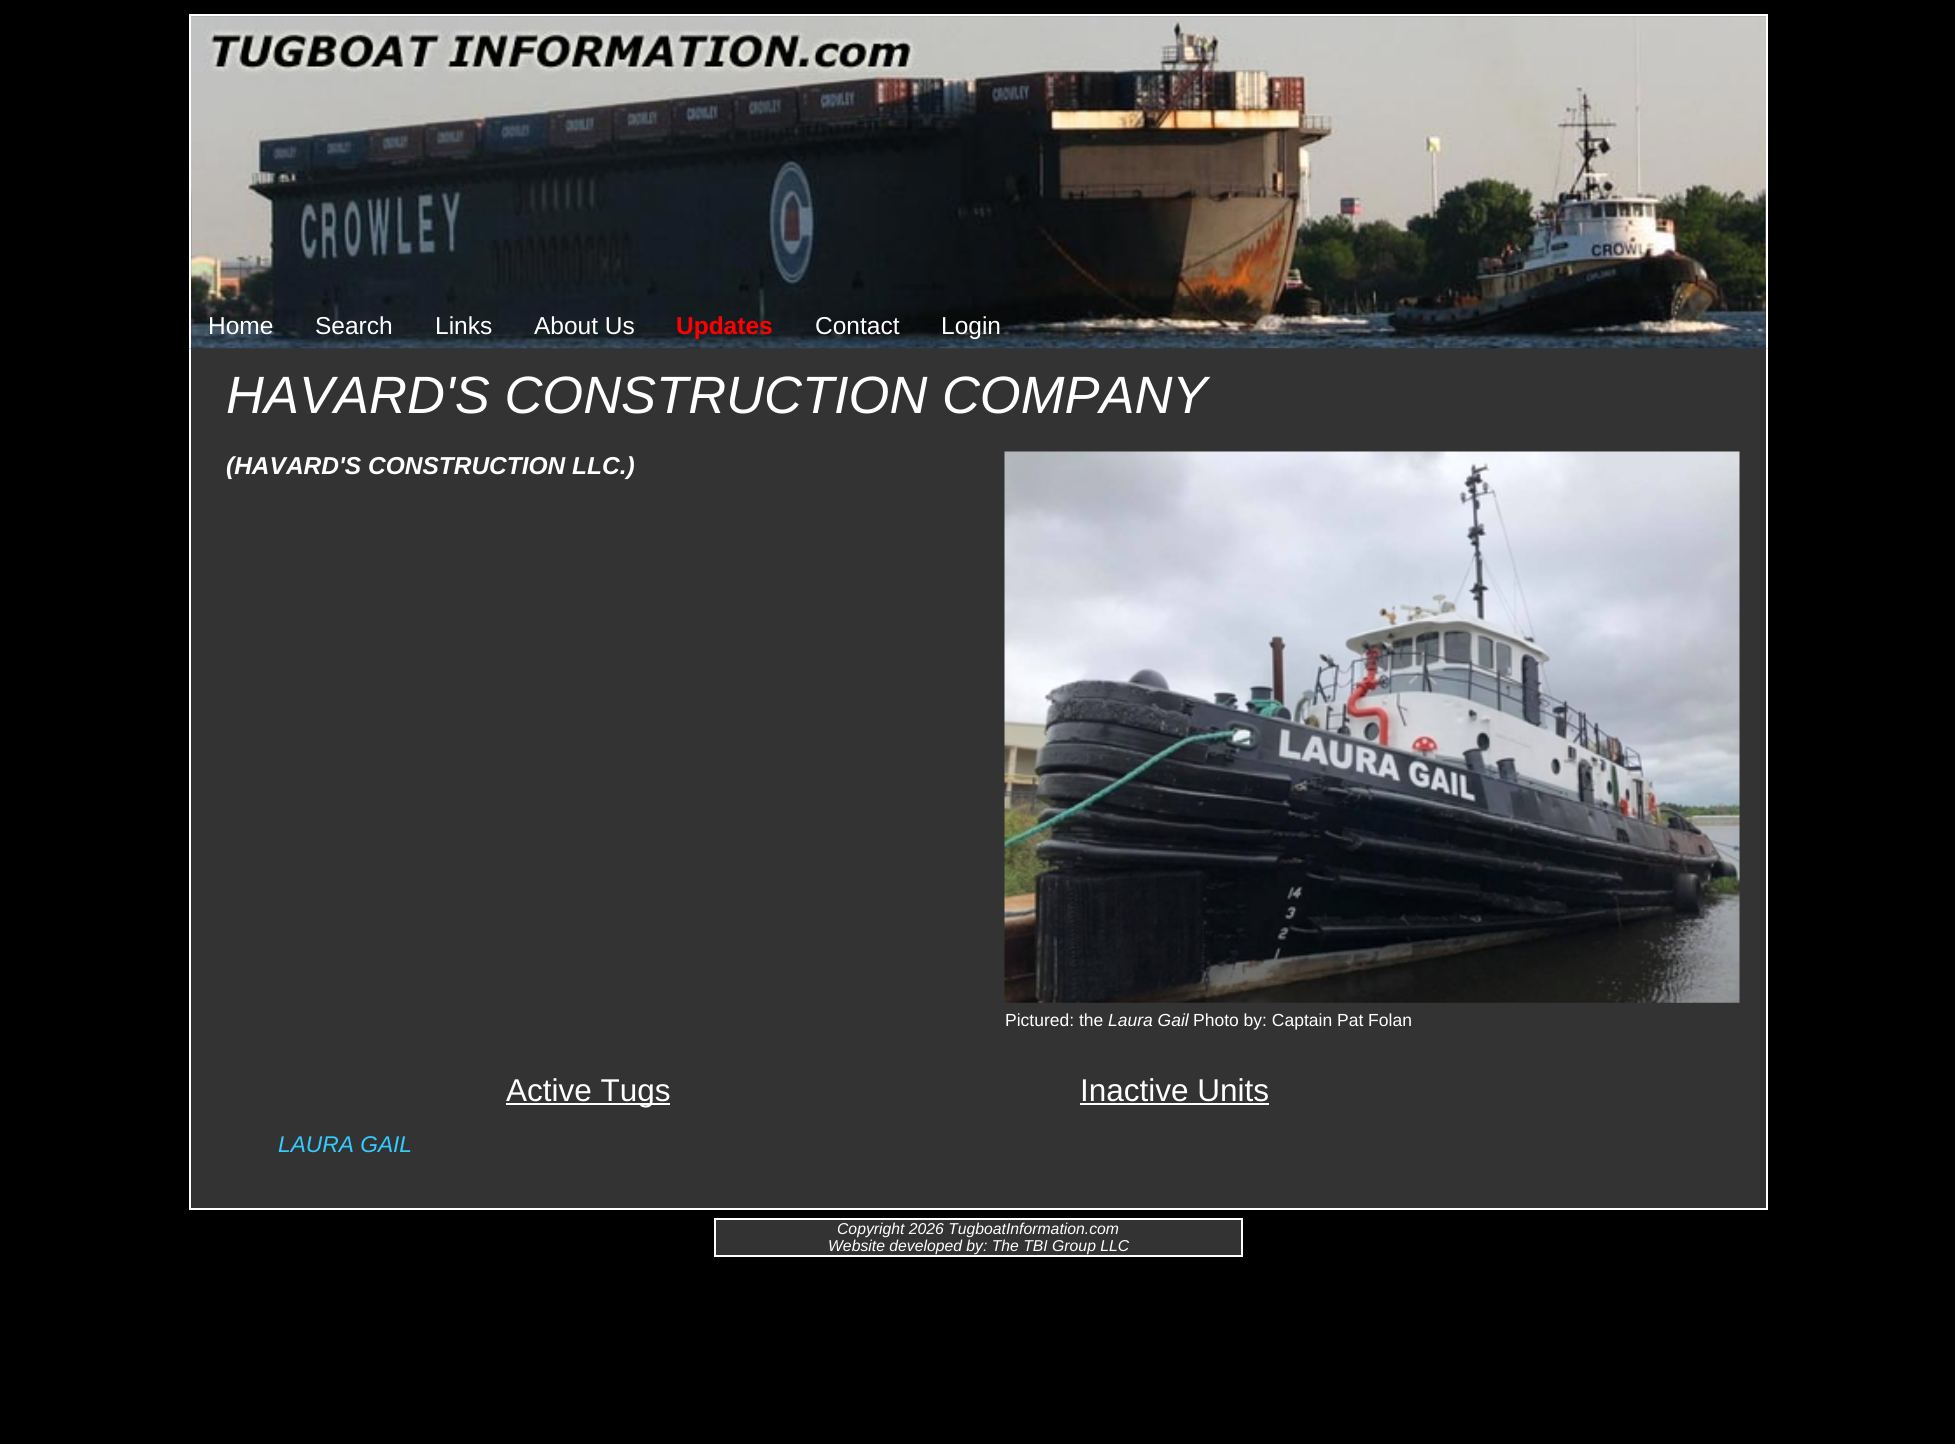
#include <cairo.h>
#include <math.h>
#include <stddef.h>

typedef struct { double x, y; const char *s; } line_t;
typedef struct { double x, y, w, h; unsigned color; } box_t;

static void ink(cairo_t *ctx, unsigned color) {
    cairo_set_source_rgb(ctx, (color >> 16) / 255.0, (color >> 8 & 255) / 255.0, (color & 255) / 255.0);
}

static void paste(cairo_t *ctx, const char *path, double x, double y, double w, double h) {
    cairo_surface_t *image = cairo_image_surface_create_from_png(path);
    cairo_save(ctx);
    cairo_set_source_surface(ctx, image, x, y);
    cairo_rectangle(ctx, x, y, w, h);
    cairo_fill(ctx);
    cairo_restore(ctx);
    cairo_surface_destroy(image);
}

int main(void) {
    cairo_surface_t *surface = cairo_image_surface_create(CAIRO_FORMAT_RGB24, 1955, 1444);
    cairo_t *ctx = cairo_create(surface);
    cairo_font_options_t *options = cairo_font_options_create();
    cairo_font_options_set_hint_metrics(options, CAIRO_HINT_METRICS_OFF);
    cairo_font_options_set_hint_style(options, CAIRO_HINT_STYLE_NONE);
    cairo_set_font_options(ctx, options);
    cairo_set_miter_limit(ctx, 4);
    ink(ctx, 0x000000);
    cairo_paint(ctx);
    {
        static const box_t items[] = {
            {191, 348, 1575, 860, 0x333333},
            {1766, 348, 2, 861, 0xFFFFFF},
            {189, 1208, 1579, 2, 0xFFFFFF},
            {189, 348, 2, 861, 0xFFFFFF},
        };
        for (size_t i = 0; i < sizeof items / sizeof *items; i++) {
            ink(ctx, items[i].color);
            cairo_rectangle(ctx, items[i].x, items[i].y, items[i].w, items[i].h);
            cairo_fill(ctx);
        }
    }
    paste(ctx, "media/1.png", 189, 16, 1579, 333);
    {
        static const box_t items[] = {
            {189, 14, 1579, 2, 0xFFFFFF},
            {1766, 14, 2, 334, 0xFFFFFF},
            {189, 14, 2, 334, 0xFFFFFF},
        };
        for (size_t i = 0; i < sizeof items / sizeof *items; i++) {
            ink(ctx, items[i].color);
            cairo_rectangle(ctx, items[i].x, items[i].y, items[i].w, items[i].h);
            cairo_fill(ctx);
        }
    }
    cairo_select_font_face(ctx, "Liberation Sans", CAIRO_FONT_SLANT_NORMAL, CAIRO_FONT_WEIGHT_NORMAL);
    cairo_set_font_size(ctx, 24.5);
    {
        static const line_t items[] = {
            {208, 334, "Home"},
            {315, 334, "Search"},
            {435, 334, "Links"},
            {534, 334, "About Us"},
        };
        for (size_t i = 0; i < sizeof items / sizeof *items; i++) {
            cairo_move_to(ctx, items[i].x, items[i].y);
            cairo_show_text(ctx, items[i].s);
        }
    }
    cairo_select_font_face(ctx, "Liberation Sans", CAIRO_FONT_SLANT_NORMAL, CAIRO_FONT_WEIGHT_BOLD);
    ink(ctx, 0xFF0000);
    cairo_move_to(ctx, 676, 334);
    cairo_show_text(ctx, "Updates");
    cairo_select_font_face(ctx, "Liberation Sans", CAIRO_FONT_SLANT_NORMAL, CAIRO_FONT_WEIGHT_NORMAL);
    ink(ctx, 0xFFFFFF);
    cairo_move_to(ctx, 815, 334);
    cairo_show_text(ctx, "Contact");
    cairo_move_to(ctx, 941, 334);
    cairo_show_text(ctx, "Login");
    cairo_select_font_face(ctx, "Liberation Sans", CAIRO_FONT_SLANT_ITALIC, CAIRO_FONT_WEIGHT_NORMAL);
    cairo_set_font_size(ctx, 52.5);
    cairo_move_to(ctx, 226, 413);
    cairo_show_text(ctx, "HAVARD'S CONSTRUCTION COMPANY");
    cairo_select_font_face(ctx, "Liberation Sans", CAIRO_FONT_SLANT_ITALIC, CAIRO_FONT_WEIGHT_BOLD);
    cairo_set_font_size(ctx, 24.5);
    cairo_move_to(ctx, 226, 474);
    cairo_show_text(ctx, "(HAVARD'S CONSTRUCTION LLC.)");
    paste(ctx, "media/2.png", 1004, 451, 736, 552);
    cairo_select_font_face(ctx, "Liberation Sans", CAIRO_FONT_SLANT_NORMAL, CAIRO_FONT_WEIGHT_NORMAL);
    cairo_set_font_size(ctx, 17.5);
    cairo_move_to(ctx, 1005, 1026);
    cairo_show_text(ctx, "Pictured: the");
    cairo_select_font_face(ctx, "Liberation Sans", CAIRO_FONT_SLANT_ITALIC, CAIRO_FONT_WEIGHT_NORMAL);
    cairo_move_to(ctx, 1108, 1026);
    cairo_show_text(ctx, "Laura Gail");
    cairo_select_font_face(ctx, "Liberation Sans", CAIRO_FONT_SLANT_NORMAL, CAIRO_FONT_WEIGHT_NORMAL);
    cairo_move_to(ctx, 1193, 1026);
    cairo_show_text(ctx, "Photo by: Captain Pat Folan");
    cairo_rectangle(ctx, 506, 1103, 164, 2);
    cairo_fill(ctx);
    cairo_set_font_size(ctx, 31.5);
    cairo_move_to(ctx, 506, 1101);
    cairo_show_text(ctx, "Active Tugs");
    cairo_select_font_face(ctx, "Liberation Sans", CAIRO_FONT_SLANT_ITALIC, CAIRO_FONT_WEIGHT_NORMAL);
    cairo_set_font_size(ctx, 22.75);
    ink(ctx, 0x33CCFF);
    cairo_move_to(ctx, 278, 1152);
    cairo_show_text(ctx, "LAURA GAIL");
    cairo_select_font_face(ctx, "Liberation Sans", CAIRO_FONT_SLANT_NORMAL, CAIRO_FONT_WEIGHT_NORMAL);
    cairo_set_font_size(ctx, 31.5);
    ink(ctx, 0xFFFFFF);
    cairo_move_to(ctx, 1080, 1101);
    cairo_show_text(ctx, "Inactive Units");
    cairo_rectangle(ctx, 1080, 1103, 189, 2);
    cairo_fill(ctx);
    ink(ctx, 0x333333);
    cairo_rectangle(ctx, 715, 1219, 527, 37);
    cairo_fill_preserve(ctx);
    ink(ctx, 0xFFFFFF);
    cairo_stroke(ctx);
    cairo_select_font_face(ctx, "Liberation Sans", CAIRO_FONT_SLANT_ITALIC, CAIRO_FONT_WEIGHT_NORMAL);
    cairo_set_font_size(ctx, 15.75);
    cairo_move_to(ctx, 837, 1234);
    cairo_show_text(ctx, "Copyright 2026 TugboatInformation.com");
    cairo_move_to(ctx, 828, 1251);
    cairo_show_text(ctx, "Website developed by: The TBI Group LLC");
    cairo_surface_write_to_png(surface, "image.png");
    cairo_font_options_destroy(options);
    cairo_destroy(ctx);
    cairo_surface_destroy(surface);
    return 0;
}
